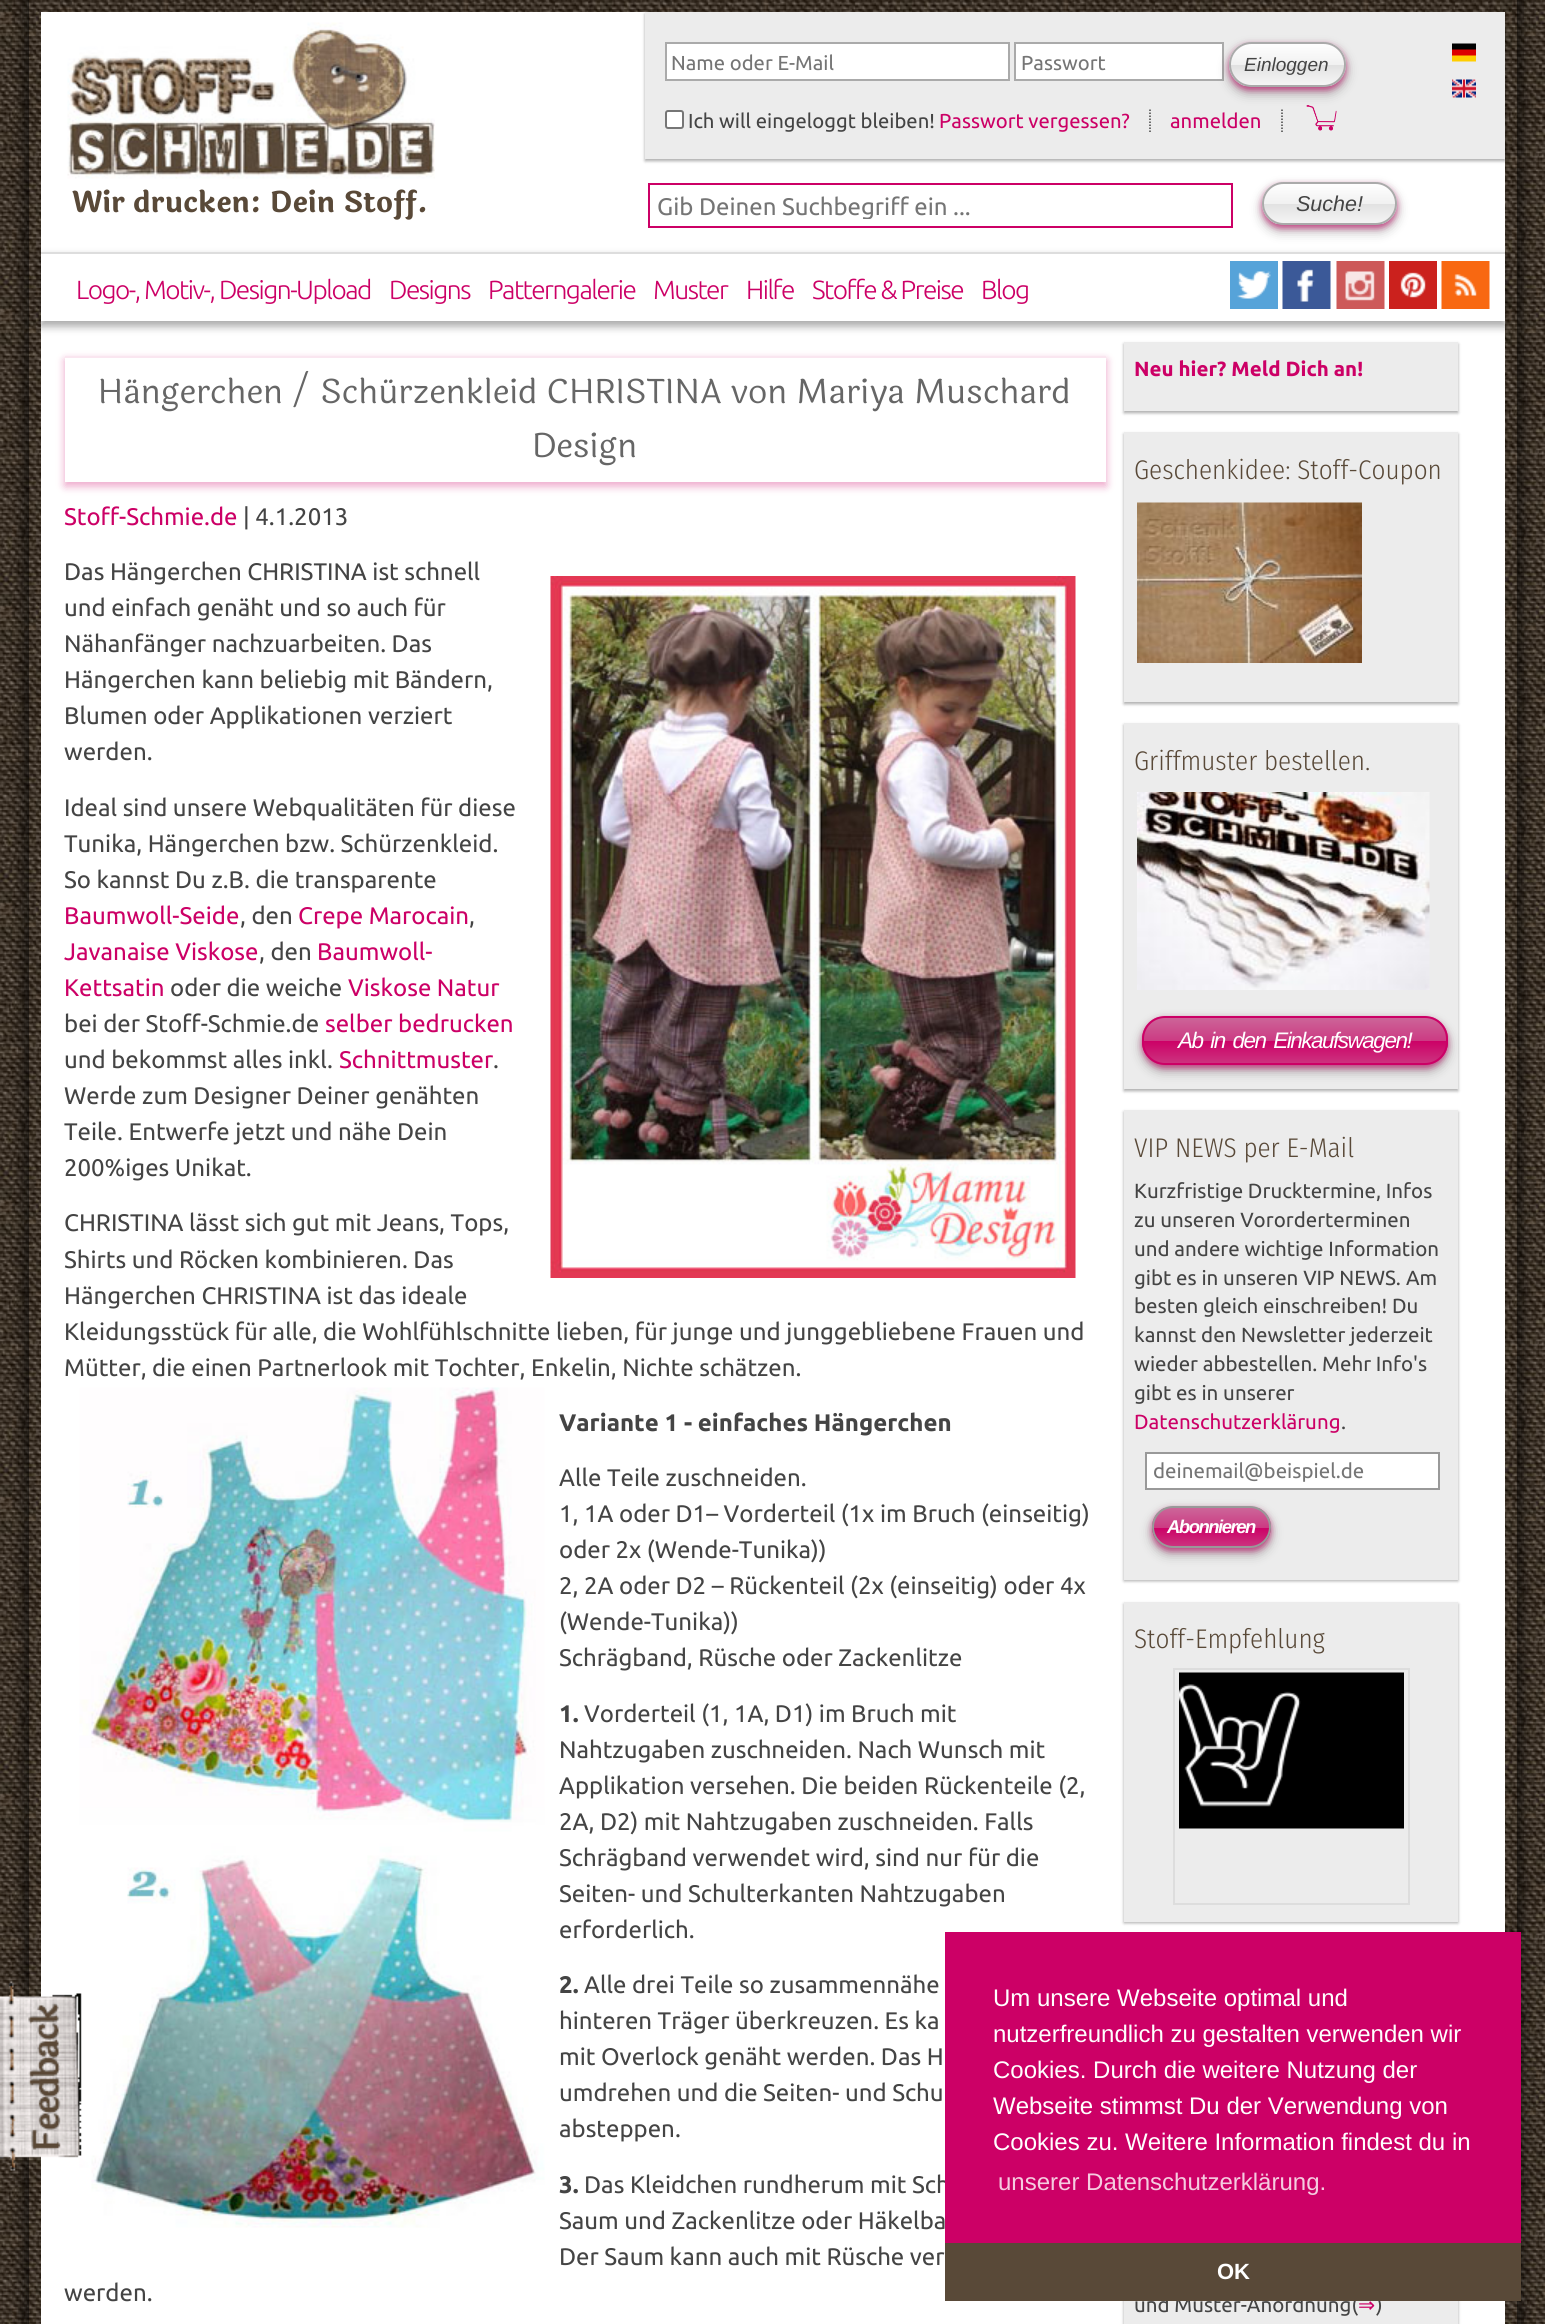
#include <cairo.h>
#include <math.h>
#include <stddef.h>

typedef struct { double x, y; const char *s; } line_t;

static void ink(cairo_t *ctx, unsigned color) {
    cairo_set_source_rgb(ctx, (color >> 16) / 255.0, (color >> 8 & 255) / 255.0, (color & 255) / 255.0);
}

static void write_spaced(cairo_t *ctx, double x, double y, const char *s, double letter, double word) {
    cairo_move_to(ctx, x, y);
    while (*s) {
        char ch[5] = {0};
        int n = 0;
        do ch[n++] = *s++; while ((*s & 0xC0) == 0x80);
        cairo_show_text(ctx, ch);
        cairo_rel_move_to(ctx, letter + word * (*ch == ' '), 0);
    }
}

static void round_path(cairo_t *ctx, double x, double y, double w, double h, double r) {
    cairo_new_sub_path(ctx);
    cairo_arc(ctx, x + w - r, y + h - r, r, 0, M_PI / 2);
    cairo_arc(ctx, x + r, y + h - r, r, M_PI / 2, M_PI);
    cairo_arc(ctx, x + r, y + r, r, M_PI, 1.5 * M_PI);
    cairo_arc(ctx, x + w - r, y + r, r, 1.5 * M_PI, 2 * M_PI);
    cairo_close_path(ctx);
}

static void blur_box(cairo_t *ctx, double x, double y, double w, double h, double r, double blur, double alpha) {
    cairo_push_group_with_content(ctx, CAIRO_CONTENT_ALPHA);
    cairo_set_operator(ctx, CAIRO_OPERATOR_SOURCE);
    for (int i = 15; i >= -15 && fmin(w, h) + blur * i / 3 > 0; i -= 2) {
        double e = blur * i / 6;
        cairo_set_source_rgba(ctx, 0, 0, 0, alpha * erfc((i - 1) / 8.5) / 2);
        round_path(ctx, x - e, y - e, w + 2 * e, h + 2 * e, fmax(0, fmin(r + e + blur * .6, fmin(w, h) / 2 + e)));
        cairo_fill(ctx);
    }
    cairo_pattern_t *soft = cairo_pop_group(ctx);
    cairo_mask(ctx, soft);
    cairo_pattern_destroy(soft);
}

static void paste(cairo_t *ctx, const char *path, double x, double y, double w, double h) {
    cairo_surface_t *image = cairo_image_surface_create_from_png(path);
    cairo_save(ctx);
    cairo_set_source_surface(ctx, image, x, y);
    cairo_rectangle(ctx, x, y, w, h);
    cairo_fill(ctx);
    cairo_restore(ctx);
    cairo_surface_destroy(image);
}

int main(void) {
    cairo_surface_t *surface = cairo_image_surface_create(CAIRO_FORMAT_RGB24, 1545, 2324);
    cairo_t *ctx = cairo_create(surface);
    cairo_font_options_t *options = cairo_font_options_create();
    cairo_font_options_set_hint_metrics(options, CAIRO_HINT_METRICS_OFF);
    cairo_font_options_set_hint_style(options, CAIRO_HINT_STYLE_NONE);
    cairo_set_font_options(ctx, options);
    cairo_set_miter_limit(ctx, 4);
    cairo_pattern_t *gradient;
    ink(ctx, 0xFFFFFF);
    cairo_paint(ctx);
    paste(ctx, "media/1.png", 0, 0, 1545, 2324);
    cairo_save(ctx);
    cairo_set_fill_rule(ctx, CAIRO_FILL_RULE_EVEN_ODD);
    cairo_new_path(ctx);
    cairo_move_to(ctx, 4, 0);
    cairo_line_to(ctx, 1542, 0);
    cairo_line_to(ctx, 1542, 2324);
    cairo_line_to(ctx, 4, 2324);
    cairo_close_path(ctx);
    cairo_move_to(ctx, 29, 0);
    cairo_line_to(ctx, 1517, 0);
    cairo_line_to(ctx, 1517, 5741);
    cairo_line_to(ctx, 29, 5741);
    cairo_close_path(ctx);
    cairo_clip(ctx);
    ink(ctx, 0x000000);
    blur_box(ctx, 23, -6, 1500, 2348, 0, 6, 0.6);
    cairo_restore(ctx);
    ink(ctx, 0xFFFFFF);
    cairo_rectangle(ctx, 41, 12, 1464, 2312);
    cairo_fill(ctx);
    paste(ctx, "media/13.png", 79, 1387, 466, 841);
    paste(ctx, "media/2.png", 0, 1981, 82, 190);
    ink(ctx, 0x000000);
    blur_box(ctx, 645, 14, 860, 147, 0, 1.5, 0.24);
    blur_box(ctx, 645, 14, 860, 147, 0, 2, 0.12);
    ink(ctx, 0xECECEC);
    cairo_rectangle(ctx, 645, 12, 860, 147);
    cairo_fill(ctx);
    ink(ctx, 0xFFFFFF);
    cairo_rectangle(ctx, 666, 43, 343, 37);
    cairo_fill_preserve(ctx);
    ink(ctx, 0xAAAAAA);
    cairo_stroke(ctx);
    cairo_select_font_face(ctx, "Ubuntu", CAIRO_FONT_SLANT_NORMAL, CAIRO_FONT_WEIGHT_NORMAL);
    cairo_set_font_size(ctx, 20.25);
    ink(ctx, 0x757575);
    cairo_move_to(ctx, 671, 70);
    cairo_show_text(ctx, "Name oder E-Mail");
    ink(ctx, 0xFFFFFF);
    cairo_rectangle(ctx, 1015, 43, 208, 37);
    cairo_fill_preserve(ctx);
    ink(ctx, 0xAAAAAA);
    cairo_stroke(ctx);
    ink(ctx, 0x757575);
    cairo_move_to(ctx, 1021, 70);
    cairo_show_text(ctx, "Passwort");
    cairo_new_path(ctx);
    cairo_move_to(ctx, 1282, 109.5);
    cairo_line_to(ctx, 1282, 133.5);
    ink(ctx, 0x444444);
    cairo_set_line_width(ctx, 1.5);
    cairo_set_dash(ctx, (double[]){1.5, 1.5}, 2, 0);
    cairo_stroke(ctx);
    ink(ctx, 0x050505);
    blur_box(ctx, 1229, 48, 117, 45, 22.5, 6, 0.3);
    ink(ctx, 0xCC0066);
    blur_box(ctx, 1229, 45, 117, 45, 22.5, 3, 0.6);
    cairo_save(ctx);
    round_path(ctx, 1229, 42, 117, 45, 22.5);
    cairo_clip(ctx);
    gradient = cairo_pattern_create_linear(1287, 43, 1287, 86);
    cairo_pattern_add_color_stop_rgba(gradient, 0, 1, 1, 1, 1);
    cairo_pattern_add_color_stop_rgba(gradient, 0.5, 0.945, 0.945, 0.945, 1);
    cairo_pattern_add_color_stop_rgba(gradient, 0.51, 0.882, 0.882, 0.882, 1);
    cairo_pattern_add_color_stop_rgba(gradient, 1, 0.965, 0.965, 0.965, 1);
    cairo_set_source(ctx, gradient);
    cairo_pattern_destroy(gradient);
    cairo_rectangle(ctx, 1229, 44, 117, 42);
    cairo_fill(ctx);
    cairo_restore(ctx);
    round_path(ctx, 1230, 43, 115, 43, 21.5);
    ink(ctx, 0xAAAAAA);
    cairo_set_line_width(ctx, 2);
    cairo_set_dash(ctx, NULL, 0, 0);
    cairo_stroke(ctx);
    cairo_select_font_face(ctx, "Liberation Sans", CAIRO_FONT_SLANT_ITALIC, CAIRO_FONT_WEIGHT_NORMAL);
    cairo_set_font_size(ctx, 19);
    ink(ctx, 0x444444);
    cairo_move_to(ctx, 1244, 71);
    cairo_show_text(ctx, "Einloggen");
    ink(ctx, 0xFFFFFF);
    round_path(ctx, 666, 111, 17, 17, 2);
    cairo_fill_preserve(ctx);
    ink(ctx, 0x767676);
    cairo_stroke(ctx);
    cairo_select_font_face(ctx, "Ubuntu", CAIRO_FONT_SLANT_NORMAL, CAIRO_FONT_WEIGHT_NORMAL);
    cairo_set_font_size(ctx, 20.25);
    ink(ctx, 0x444444);
    cairo_move_to(ctx, 688, 128);
    cairo_show_text(ctx, "Ich will eingeloggt bleiben!");
    ink(ctx, 0xCC0066);
    cairo_move_to(ctx, 939, 128);
    cairo_show_text(ctx, "Passwort vergessen?");
    cairo_move_to(ctx, 1170, 128);
    cairo_show_text(ctx, "anmelden");
    cairo_new_path(ctx);
    cairo_move_to(ctx, 1150, 109.5);
    cairo_line_to(ctx, 1150, 133.5);
    ink(ctx, 0x444444);
    cairo_set_line_width(ctx, 1.5);
    cairo_set_dash(ctx, (double[]){1.5, 1.5}, 2, 0);
    cairo_stroke(ctx);
    paste(ctx, "media/3.png", 1306, 105, 31, 26);
    paste(ctx, "media/4.png", 1452, 43, 24, 19);
    paste(ctx, "media/5.png", 1452, 79, 24, 19);
    paste(ctx, "media/6.png", 67, 22, 368, 157);
    cairo_select_font_face(ctx, "Laila", CAIRO_FONT_SLANT_NORMAL, CAIRO_FONT_WEIGHT_BOLD);
    cairo_set_font_size(ctx, 28.75);
    ink(ctx, 0x594938);
    cairo_move_to(ctx, 72, 212);
    cairo_show_text(ctx, "Wir drucken: Dein Stoff.");
    cairo_rectangle(ctx, 649, 184, 583, 43);
    ink(ctx, 0xCC0066);
    cairo_set_line_width(ctx, 2);
    cairo_set_dash(ctx, NULL, 0, 0);
    cairo_stroke(ctx);
    cairo_save(ctx);
    cairo_rectangle(ctx, 657, 192, 567, 27);
    cairo_clip(ctx);
    cairo_select_font_face(ctx, "Ubuntu", CAIRO_FONT_SLANT_NORMAL, CAIRO_FONT_WEIGHT_NORMAL);
    cairo_set_font_size(ctx, 24);
    ink(ctx, 0x757575);
    cairo_move_to(ctx, 657, 215);
    cairo_show_text(ctx, "Gib Deinen Suchbegriff ein ...");
    cairo_restore(ctx);
    ink(ctx, 0x050505);
    blur_box(ctx, 1262, 188, 135, 43, 21.5, 6, 0.3);
    ink(ctx, 0xCC0066);
    blur_box(ctx, 1262, 185, 135, 43, 21.5, 3, 0.6);
    cairo_save(ctx);
    round_path(ctx, 1262, 182, 135, 43, 21.5);
    cairo_clip(ctx);
    gradient = cairo_pattern_create_linear(1329, 183, 1329, 224);
    cairo_pattern_add_color_stop_rgba(gradient, 0, 1, 1, 1, 1);
    cairo_pattern_add_color_stop_rgba(gradient, 0.5, 0.945, 0.945, 0.945, 1);
    cairo_pattern_add_color_stop_rgba(gradient, 0.51, 0.882, 0.882, 0.882, 1);
    cairo_pattern_add_color_stop_rgba(gradient, 1, 0.965, 0.965, 0.965, 1);
    cairo_set_source(ctx, gradient);
    cairo_pattern_destroy(gradient);
    cairo_rectangle(ctx, 1262, 183, 135, 41);
    cairo_fill(ctx);
    cairo_restore(ctx);
    round_path(ctx, 1263, 183, 133, 41, 20.5);
    ink(ctx, 0xAAAAAA);
    cairo_stroke(ctx);
    cairo_select_font_face(ctx, "Liberation Sans", CAIRO_FONT_SLANT_ITALIC, CAIRO_FONT_WEIGHT_NORMAL);
    cairo_set_font_size(ctx, 21.5);
    ink(ctx, 0x444444);
    cairo_move_to(ctx, 1296, 211);
    cairo_show_text(ctx, "Suche!");
    cairo_save(ctx);
    cairo_set_fill_rule(ctx, CAIRO_FILL_RULE_EVEN_ODD);
    cairo_new_path(ctx);
    cairo_move_to(ctx, 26, 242);
    cairo_line_to(ctx, 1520, 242);
    cairo_line_to(ctx, 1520, 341);
    cairo_line_to(ctx, 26, 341);
    cairo_close_path(ctx);
    cairo_move_to(ctx, 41, 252);
    cairo_line_to(ctx, 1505, 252);
    cairo_line_to(ctx, 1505, 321);
    cairo_line_to(ctx, 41, 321);
    cairo_close_path(ctx);
    cairo_clip(ctx);
    ink(ctx, 0x000000);
    blur_box(ctx, 41, 257, 1464, 69, 0, 4.5, 0.23);
    blur_box(ctx, 41, 257, 1464, 69, 0, 4.5, 0.16);
    cairo_restore(ctx);
    ink(ctx, 0xDDDDDD);
    cairo_rectangle(ctx, 41, 252, 1464, 2);
    cairo_fill(ctx);
    cairo_select_font_face(ctx, "Ubuntu Light", CAIRO_FONT_SLANT_NORMAL, CAIRO_FONT_WEIGHT_NORMAL);
    cairo_set_font_size(ctx, 26.25);
    ink(ctx, 0xCC0066);
    {
        static const line_t items[] = {
            {76, 299, "Logo-, Motiv-, Design-Upload"},
            {389, 299, "Designs"},
            {488, 299, "Patterngalerie"},
            {653, 299, "Muster"},
            {746, 299, "Hilfe"},
            {812, 299, "Stoffe & Preise"},
            {981, 299, "Blog"},
        };
        for (size_t i = 0; i < sizeof items / sizeof *items; i++) {
            write_spaced(ctx, items[i].x, items[i].y, items[i].s, -1.5, 0);
        }
    }
    paste(ctx, "media/7.png", 1230, 261, 48, 48);
    paste(ctx, "media/8.png", 1282, 261, 49, 48);
    paste(ctx, "media/9.png", 1336, 261, 49, 48);
    paste(ctx, "media/10.png", 1389, 261, 48, 48);
    paste(ctx, "media/11.png", 1441, 261, 49, 48);
    cairo_save(ctx);
    cairo_set_fill_rule(ctx, CAIRO_FILL_RULE_EVEN_ODD);
    cairo_new_path(ctx);
    cairo_move_to(ctx, 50, 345);
    cairo_line_to(ctx, 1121, 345);
    cairo_line_to(ctx, 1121, 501);
    cairo_line_to(ctx, 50, 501);
    cairo_close_path(ctx);
    cairo_move_to(ctx, 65, 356);
    cairo_line_to(ctx, 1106, 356);
    cairo_line_to(ctx, 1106, 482);
    cairo_line_to(ctx, 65, 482);
    cairo_close_path(ctx);
    cairo_clip(ctx);
    ink(ctx, 0xCC0066);
    blur_box(ctx, 65, 360, 1041, 126, 0, 4.5, 0.23);
    blur_box(ctx, 65, 360, 1041, 126, 0, 4.5, 0.16);
    cairo_restore(ctx);
    cairo_set_source_rgba(ctx, 0.8, 0, 0.4, 0.1);
    cairo_rectangle(ctx, 65, 356, 1041, 2);
    cairo_fill(ctx);
    cairo_select_font_face(ctx, "Laila", CAIRO_FONT_SLANT_NORMAL, CAIRO_FONT_WEIGHT_NORMAL);
    cairo_set_font_size(ctx, 33.6);
    ink(ctx, 0x666666);
    cairo_move_to(ctx, 98, 403);
    cairo_show_text(ctx, "Hängerchen / Schürzenkleid CHRISTINA von Mariya Muschard");
    cairo_move_to(ctx, 532, 457);
    cairo_show_text(ctx, "Design");
    cairo_select_font_face(ctx, "Ubuntu", CAIRO_FONT_SLANT_NORMAL, CAIRO_FONT_WEIGHT_NORMAL);
    cairo_set_font_size(ctx, 24);
    ink(ctx, 0xCC0066);
    cairo_move_to(ctx, 64, 525);
    cairo_show_text(ctx, "Stoff-Schmie.de");
    ink(ctx, 0x444444);
    {
        static const line_t items[] = {
            {243, 525, "| 4.1.2013"},
            {64, 580, "Das Hängerchen CHRISTINA ist schnell"},
            {64, 616, "und einfach genäht und so auch für"},
        };
        for (size_t i = 0; i < sizeof items / sizeof *items; i++) {
            cairo_move_to(ctx, items[i].x, items[i].y);
            cairo_show_text(ctx, items[i].s);
        }
    }
    paste(ctx, "media/12.png", 550, 576, 526, 702);
    {
        static const line_t items[] = {
            {64, 652, "Nähanfänger nachzuarbeiten. Das"},
            {64, 688, "Hängerchen kann beliebig mit Bändern,"},
            {64, 724, "Blumen oder Applikationen verziert"},
            {64, 760, "werden."},
            {64, 816, "Ideal sind unsere Webqualitäten für diese"},
            {64, 852, "Tunika, Hängerchen bzw. Schürzenkleid."},
            {64, 888, "So kannst Du z.B. die transparente"},
        };
        for (size_t i = 0; i < sizeof items / sizeof *items; i++) {
            cairo_move_to(ctx, items[i].x, items[i].y);
            cairo_show_text(ctx, items[i].s);
        }
    }
    ink(ctx, 0xCC0066);
    cairo_move_to(ctx, 64, 924);
    cairo_show_text(ctx, "Baumwoll-Seide");
    ink(ctx, 0x444444);
    cairo_move_to(ctx, 240, 924);
    cairo_show_text(ctx, ", den");
    ink(ctx, 0xCC0066);
    cairo_move_to(ctx, 298, 924);
    cairo_show_text(ctx, "Crepe Marocain");
    ink(ctx, 0x444444);
    cairo_move_to(ctx, 469, 924);
    cairo_show_text(ctx, ",");
    ink(ctx, 0xCC0066);
    cairo_move_to(ctx, 64, 960);
    cairo_show_text(ctx, "Javanaise Viskose");
    ink(ctx, 0x444444);
    cairo_move_to(ctx, 259, 960);
    cairo_show_text(ctx, ", den");
    ink(ctx, 0xCC0066);
    cairo_move_to(ctx, 317, 960);
    cairo_show_text(ctx, "Baumwoll-");
    cairo_move_to(ctx, 64, 996);
    cairo_show_text(ctx, "Kettsatin");
    ink(ctx, 0x444444);
    cairo_move_to(ctx, 170, 996);
    cairo_show_text(ctx, "oder die weiche");
    ink(ctx, 0xCC0066);
    cairo_move_to(ctx, 348, 996);
    cairo_show_text(ctx, "Viskose Natur");
    ink(ctx, 0x444444);
    cairo_move_to(ctx, 64, 1032);
    cairo_show_text(ctx, "bei der Stoff-Schmie.de");
    ink(ctx, 0xCC0066);
    cairo_move_to(ctx, 325, 1032);
    cairo_show_text(ctx, "selber bedrucken");
    ink(ctx, 0x444444);
    cairo_move_to(ctx, 64, 1068);
    cairo_show_text(ctx, "und bekommst alles inkl.");
    ink(ctx, 0xCC0066);
    cairo_move_to(ctx, 339, 1068);
    cairo_show_text(ctx, "Schnittmuster");
    ink(ctx, 0x444444);
    {
        static const line_t items[] = {
            {493, 1068, "."},
            {64, 1104, "Werde zum Designer Deiner genähten"},
            {64, 1140, "Teile. Entwerfe jetzt und nähe Dein"},
            {64, 1176, "200%iges Unikat."},
            {64, 1231, "CHRISTINA lässt sich gut mit Jeans, Tops,"},
            {64, 1268, "Shirts und Röcken kombinieren. Das"},
            {64, 1304, "Hängerchen CHRISTINA ist das ideale"},
            {64, 1340, "Kleidungsstück für alle, die Wohlfühlschnitte lieben, für junge und junggebliebene Frauen und"},
            {64, 1376, "Mütter, die einen Partnerlook mit Tochter, Enkelin, Nichte schätzen."},
        };
        for (size_t i = 0; i < sizeof items / sizeof *items; i++) {
            cairo_move_to(ctx, items[i].x, items[i].y);
            cairo_show_text(ctx, items[i].s);
        }
    }
    cairo_select_font_face(ctx, "Ubuntu", CAIRO_FONT_SLANT_NORMAL, CAIRO_FONT_WEIGHT_BOLD);
    cairo_move_to(ctx, 559, 1431);
    cairo_show_text(ctx, "Variante 1 - einfaches Hängerchen");
    cairo_select_font_face(ctx, "Ubuntu", CAIRO_FONT_SLANT_NORMAL, CAIRO_FONT_WEIGHT_NORMAL);
    {
        static const line_t items[] = {
            {559, 1486, "Alle Teile zuschneiden."},
            {559, 1522, "1, 1A oder D1– Vorderteil (1x im Bruch (einseitig)"},
            {559, 1558, "oder 2x (Wende-Tunika))"},
            {559, 1594, "2, 2A oder D2 – Rückenteil (2x (einseitig) oder 4x"},
            {559, 1630, "(Wende-Tunika))"},
            {559, 1666, "Schrägband, Rüsche oder Zackenlitze"},
        };
        for (size_t i = 0; i < sizeof items / sizeof *items; i++) {
            cairo_move_to(ctx, items[i].x, items[i].y);
            cairo_show_text(ctx, items[i].s);
        }
    }
    cairo_select_font_face(ctx, "Ubuntu", CAIRO_FONT_SLANT_NORMAL, CAIRO_FONT_WEIGHT_BOLD);
    cairo_move_to(ctx, 559, 1722);
    cairo_show_text(ctx, "1.");
    cairo_select_font_face(ctx, "Ubuntu", CAIRO_FONT_SLANT_NORMAL, CAIRO_FONT_WEIGHT_NORMAL);
    {
        static const line_t items[] = {
            {584, 1722, "Vorderteil (1, 1A, D1) im Bruch mit"},
            {559, 1758, "Nahtzugaben zuschneiden. Nach Wunsch mit"},
            {559, 1794, "Applikation versehen. Die beiden Rückenteile (2,"},
            {559, 1830, "2A, D2) mit Nahtzugaben zuschneiden. Falls"},
            {559, 1866, "Schrägband verwendet wird, sind nur für die"},
            {559, 1902, "Seiten- und Schulterkanten Nahtzugaben"},
            {559, 1938, "erforderlich."},
        };
        for (size_t i = 0; i < sizeof items / sizeof *items; i++) {
            cairo_move_to(ctx, items[i].x, items[i].y);
            cairo_show_text(ctx, items[i].s);
        }
    }
    cairo_select_font_face(ctx, "Ubuntu", CAIRO_FONT_SLANT_NORMAL, CAIRO_FONT_WEIGHT_BOLD);
    cairo_move_to(ctx, 559, 1993);
    cairo_show_text(ctx, "2.");
    cairo_select_font_face(ctx, "Ubuntu", CAIRO_FONT_SLANT_NORMAL, CAIRO_FONT_WEIGHT_NORMAL);
    {
        static const line_t items[] = {
            {584, 1993, "Alle drei Teile so zusammennähe"},
            {559, 2029, "hinteren Träger überkreuzen. Es ka"},
            {559, 2065, "mit Overlock genäht werden. Das H"},
            {559, 2101, "umdrehen und die Seiten- und Schu"},
            {559, 2137, "absteppen."},
        };
        for (size_t i = 0; i < sizeof items / sizeof *items; i++) {
            cairo_move_to(ctx, items[i].x, items[i].y);
            cairo_show_text(ctx, items[i].s);
        }
    }
    cairo_select_font_face(ctx, "Ubuntu", CAIRO_FONT_SLANT_NORMAL, CAIRO_FONT_WEIGHT_BOLD);
    cairo_move_to(ctx, 559, 2193);
    cairo_show_text(ctx, "3.");
    cairo_select_font_face(ctx, "Ubuntu", CAIRO_FONT_SLANT_NORMAL, CAIRO_FONT_WEIGHT_NORMAL);
    {
        static const line_t items[] = {
            {584, 2193, "Das Kleidchen rundherum mit Sch"},
            {559, 2229, "Saum und Zackenlitze oder Häkelba"},
            {559, 2265, "Der Saum kann auch mit Rüsche ver"},
            {64, 2301, "werden."},
        };
        for (size_t i = 0; i < sizeof items / sizeof *items; i++) {
            cairo_move_to(ctx, items[i].x, items[i].y);
            cairo_show_text(ctx, items[i].s);
        }
    }
    ink(ctx, 0x000000);
    blur_box(ctx, 1124, 344, 334, 69, 0, 1.5, 0.24);
    blur_box(ctx, 1124, 344, 334, 69, 0, 2, 0.12);
    ink(ctx, 0xECECEC);
    cairo_rectangle(ctx, 1124, 342, 334, 69);
    cairo_fill(ctx);
    cairo_select_font_face(ctx, "Ubuntu", CAIRO_FONT_SLANT_NORMAL, CAIRO_FONT_WEIGHT_BOLD);
    cairo_set_font_size(ctx, 20.5);
    ink(ctx, 0xCC0066);
    cairo_move_to(ctx, 1134, 376);
    cairo_show_text(ctx, "Neu hier? Meld Dich an!");
    ink(ctx, 0x000000);
    blur_box(ctx, 1124, 434, 334, 270, 0, 1.5, 0.24);
    blur_box(ctx, 1124, 434, 334, 270, 0, 2, 0.12);
    ink(ctx, 0xECECEC);
    cairo_rectangle(ctx, 1124, 432, 334, 270);
    cairo_fill(ctx);
    cairo_select_font_face(ctx, "Fira Sans Condensed Light", CAIRO_FONT_SLANT_NORMAL, CAIRO_FONT_WEIGHT_NORMAL);
    cairo_set_font_size(ctx, 27);
    ink(ctx, 0x594938);
    cairo_move_to(ctx, 1134, 479);
    cairo_show_text(ctx, "Geschenkidee: Stoff-Coupon");
    paste(ctx, "media/14.png", 1137, 502, 225, 161);
    ink(ctx, 0x000000);
    blur_box(ctx, 1124, 725, 334, 366, 0, 1.5, 0.24);
    blur_box(ctx, 1124, 725, 334, 366, 0, 2, 0.12);
    ink(ctx, 0xECECEC);
    cairo_rectangle(ctx, 1124, 723, 334, 366);
    cairo_fill(ctx);
    ink(ctx, 0x594938);
    cairo_move_to(ctx, 1134, 770);
    cairo_show_text(ctx, "Griffmuster bestellen.");
    paste(ctx, "media/15.png", 1137, 792, 293, 198);
    ink(ctx, 0x050505);
    blur_box(ctx, 1142, 1022, 306, 49, 23, 6, 0.3);
    ink(ctx, 0xCC0066);
    blur_box(ctx, 1142, 1019, 306, 49, 23, 3, 0.6);
    cairo_save(ctx);
    round_path(ctx, 1142, 1016, 306, 49, 23);
    cairo_clip(ctx);
    gradient = cairo_pattern_create_linear(1295, 1017, 1295, 1064);
    cairo_pattern_add_color_stop_rgba(gradient, 0, 0.8, 0.4, 0.6, 1);
    cairo_pattern_add_color_stop_rgba(gradient, 0.5, 0.8, 0.231, 0.514, 1);
    cairo_pattern_add_color_stop_rgba(gradient, 0.51, 0.8, 0, 0.4, 1);
    cairo_pattern_add_color_stop_rgba(gradient, 1, 0.8, 0.208, 0.502, 1);
    cairo_set_source(ctx, gradient);
    cairo_pattern_destroy(gradient);
    cairo_rectangle(ctx, 1142, 1017, 306, 47);
    cairo_fill(ctx);
    cairo_restore(ctx);
    round_path(ctx, 1143, 1017, 304, 47, 22);
    ink(ctx, 0xCC0066);
    cairo_stroke(ctx);
    cairo_select_font_face(ctx, "Liberation Sans", CAIRO_FONT_SLANT_ITALIC, CAIRO_FONT_WEIGHT_NORMAL);
    cairo_set_font_size(ctx, 22.5);
    ink(ctx, 0xFFFFFF);
    write_spaced(ctx, 1178, 1048, "Ab in den Einkaufswagen!", -1.5, 3);
    ink(ctx, 0x000000);
    blur_box(ctx, 1124, 1112, 334, 469, 0, 1.5, 0.24);
    blur_box(ctx, 1124, 1112, 334, 469, 0, 2, 0.12);
    ink(ctx, 0xECECEC);
    cairo_rectangle(ctx, 1124, 1110, 334, 470);
    cairo_fill(ctx);
    cairo_select_font_face(ctx, "Fira Sans Condensed Light", CAIRO_FONT_SLANT_NORMAL, CAIRO_FONT_WEIGHT_NORMAL);
    cairo_set_font_size(ctx, 27);
    ink(ctx, 0x594938);
    cairo_move_to(ctx, 1134, 1157);
    cairo_show_text(ctx, "VIP NEWS per E-Mail");
    cairo_select_font_face(ctx, "Ubuntu", CAIRO_FONT_SLANT_NORMAL, CAIRO_FONT_WEIGHT_NORMAL);
    cairo_set_font_size(ctx, 20.5);
    ink(ctx, 0x444444);
    {
        static const line_t items[] = {
            {1134, 1198, "Kurzfristige Drucktermine, Infos"},
            {1134, 1227, "zu unseren Vororderterminen"},
            {1134, 1256, "und andere wichtige Information"},
            {1134, 1285, "gibt es in unseren VIP NEWS."},
            {1406, 1285, "Am"},
            {1134, 1313, "besten gleich einschreiben! Du"},
            {1134, 1342, "kannst den Newsletter jederzeit"},
            {1134, 1371, "wieder abbestellen. Mehr Info's"},
            {1134, 1400, "gibt es in unserer"},
        };
        for (size_t i = 0; i < sizeof items / sizeof *items; i++) {
            cairo_move_to(ctx, items[i].x, items[i].y);
            cairo_show_text(ctx, items[i].s);
        }
    }
    ink(ctx, 0xCC0066);
    cairo_move_to(ctx, 1134, 1429);
    cairo_show_text(ctx, "Datenschutzerklärung");
    ink(ctx, 0x444444);
    cairo_move_to(ctx, 1341, 1429);
    cairo_show_text(ctx, ".");
    ink(ctx, 0xFFFFFF);
    cairo_rectangle(ctx, 1146, 1453, 293, 36);
    cairo_fill_preserve(ctx);
    ink(ctx, 0x999999);
    cairo_stroke(ctx);
    ink(ctx, 0x757575);
    cairo_move_to(ctx, 1153, 1478);
    cairo_show_text(ctx, "deinemail@beispiel.de");
    ink(ctx, 0x050505);
    blur_box(ctx, 1152, 1512, 119, 42, 21, 6, 0.3);
    ink(ctx, 0xCC0066);
    blur_box(ctx, 1152, 1509, 119, 42, 21, 3, 0.6);
    cairo_save(ctx);
    round_path(ctx, 1152, 1506, 119, 42, 21);
    cairo_clip(ctx);
    gradient = cairo_pattern_create_linear(1211, 1508, 1211, 1547);
    cairo_pattern_add_color_stop_rgba(gradient, 0, 0.8, 0.4, 0.6, 1);
    cairo_pattern_add_color_stop_rgba(gradient, 0.5, 0.8, 0.231, 0.514, 1);
    cairo_pattern_add_color_stop_rgba(gradient, 0.51, 0.8, 0, 0.4, 1);
    cairo_pattern_add_color_stop_rgba(gradient, 1, 0.8, 0.208, 0.502, 1);
    cairo_set_source(ctx, gradient);
    cairo_pattern_destroy(gradient);
    cairo_rectangle(ctx, 1152, 1508, 119, 39);
    cairo_fill(ctx);
    cairo_restore(ctx);
    round_path(ctx, 1153, 1507, 117, 40, 20);
    ink(ctx, 0x999999);
    cairo_stroke(ctx);
    cairo_select_font_face(ctx, "Liberation Sans", CAIRO_FONT_SLANT_ITALIC, CAIRO_FONT_WEIGHT_BOLD);
    cairo_set_font_size(ctx, 18.5);
    ink(ctx, 0xFFFFFF);
    write_spaced(ctx, 1167, 1533, "Abonnieren", -1.5, 0);
    ink(ctx, 0x000000);
    blur_box(ctx, 1124, 1604, 334, 319, 0, 1.5, 0.24);
    blur_box(ctx, 1124, 1604, 334, 319, 0, 2, 0.12);
    ink(ctx, 0xECECEC);
    cairo_rectangle(ctx, 1124, 1602, 334, 320);
    cairo_fill(ctx);
    cairo_select_font_face(ctx, "Fira Sans Condensed Light", CAIRO_FONT_SLANT_NORMAL, CAIRO_FONT_WEIGHT_NORMAL);
    cairo_set_font_size(ctx, 27);
    ink(ctx, 0x594938);
    cairo_move_to(ctx, 1134, 1648);
    cairo_show_text(ctx, "Stoff-Empfehlung");
    cairo_rectangle(ctx, 1174, 1669, 235, 235);
    ink(ctx, 0xDDDDDD);
    cairo_stroke(ctx);
    paste(ctx, "media/16.png", 1179, 1672, 225, 157);
    ink(ctx, 0x000000);
    blur_box(ctx, 1124, 1944, 334, 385, 0, 1.5, 0.24);
    blur_box(ctx, 1124, 1944, 334, 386, 0, 2, 0.12);
    ink(ctx, 0xECECEC);
    cairo_rectangle(ctx, 1124, 2301, 334, 23);
    cairo_fill(ctx);
    cairo_select_font_face(ctx, "Ubuntu", CAIRO_FONT_SLANT_NORMAL, CAIRO_FONT_WEIGHT_NORMAL);
    cairo_set_font_size(ctx, 20.5);
    ink(ctx, 0x444444);
    cairo_move_to(ctx, 1134, 2312);
    cairo_show_text(ctx, "und Muster-Anordnung(");
    cairo_select_font_face(ctx, "DejaVu Sans", CAIRO_FONT_SLANT_NORMAL, CAIRO_FONT_WEIGHT_NORMAL);
    ink(ctx, 0xCC0066);
    cairo_move_to(ctx, 1358, 2312);
    cairo_show_text(ctx, "⇒");
    cairo_select_font_face(ctx, "Ubuntu", CAIRO_FONT_SLANT_NORMAL, CAIRO_FONT_WEIGHT_NORMAL);
    ink(ctx, 0x444444);
    cairo_move_to(ctx, 1376, 2312);
    cairo_show_text(ctx, ")");
    ink(ctx, 0xCC0066);
    cairo_rectangle(ctx, 945, 1932, 576, 311);
    cairo_fill(ctx);
    cairo_select_font_face(ctx, "Liberation Sans", CAIRO_FONT_SLANT_NORMAL, CAIRO_FONT_WEIGHT_NORMAL);
    cairo_set_font_size(ctx, 24);
    ink(ctx, 0xFFFFFF);
    {
        static const line_t items[] = {
            {993, 2006, "Um unsere Webseite optimal und"},
            {993, 2042, "nutzerfreundlich zu gestalten verwenden wir"},
            {993, 2078, "Cookies. Durch die weitere Nutzung der"},
            {993, 2114, "Webseite stimmst Du der Verwendung von"},
            {993, 2150, "Cookies zu. Weitere Information findest du in"},
        };
        for (size_t i = 0; i < sizeof items / sizeof *items; i++) {
            cairo_move_to(ctx, items[i].x, items[i].y);
            cairo_show_text(ctx, items[i].s);
        }
    }
    ink(ctx, 0xF5CCE0);
    cairo_move_to(ctx, 998, 2190);
    cairo_show_text(ctx, "unserer Datenschutzerklärung.");
    ink(ctx, 0x594938);
    cairo_rectangle(ctx, 945, 2243, 576, 58);
    cairo_fill(ctx);
    cairo_select_font_face(ctx, "Liberation Sans", CAIRO_FONT_SLANT_NORMAL, CAIRO_FONT_WEIGHT_BOLD);
    cairo_set_font_size(ctx, 22);
    ink(ctx, 0xFFFFFF);
    cairo_move_to(ctx, 1217, 2279);
    cairo_show_text(ctx, "OK");
    cairo_surface_write_to_png(surface, "image.png");
    cairo_font_options_destroy(options);
    cairo_destroy(ctx);
    cairo_surface_destroy(surface);
    return 0;
}
